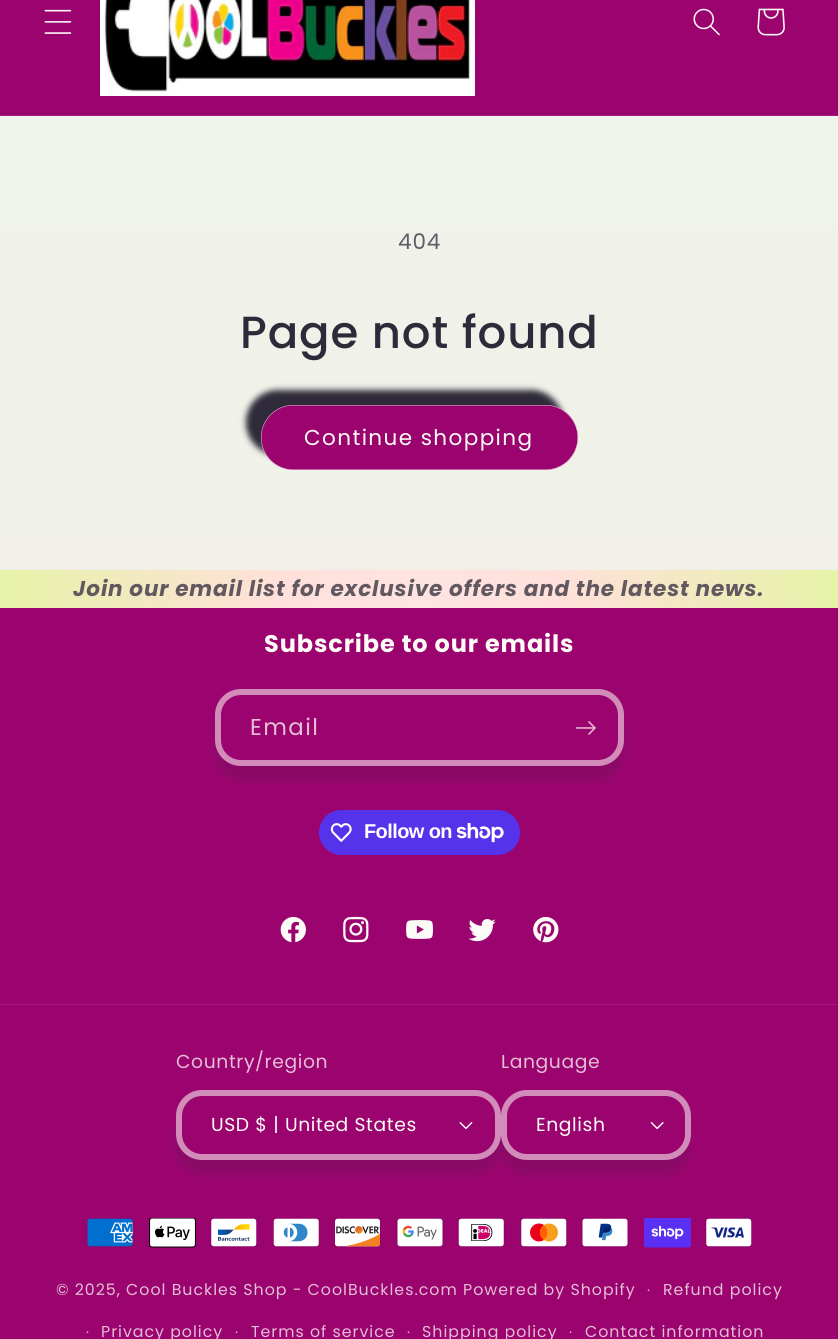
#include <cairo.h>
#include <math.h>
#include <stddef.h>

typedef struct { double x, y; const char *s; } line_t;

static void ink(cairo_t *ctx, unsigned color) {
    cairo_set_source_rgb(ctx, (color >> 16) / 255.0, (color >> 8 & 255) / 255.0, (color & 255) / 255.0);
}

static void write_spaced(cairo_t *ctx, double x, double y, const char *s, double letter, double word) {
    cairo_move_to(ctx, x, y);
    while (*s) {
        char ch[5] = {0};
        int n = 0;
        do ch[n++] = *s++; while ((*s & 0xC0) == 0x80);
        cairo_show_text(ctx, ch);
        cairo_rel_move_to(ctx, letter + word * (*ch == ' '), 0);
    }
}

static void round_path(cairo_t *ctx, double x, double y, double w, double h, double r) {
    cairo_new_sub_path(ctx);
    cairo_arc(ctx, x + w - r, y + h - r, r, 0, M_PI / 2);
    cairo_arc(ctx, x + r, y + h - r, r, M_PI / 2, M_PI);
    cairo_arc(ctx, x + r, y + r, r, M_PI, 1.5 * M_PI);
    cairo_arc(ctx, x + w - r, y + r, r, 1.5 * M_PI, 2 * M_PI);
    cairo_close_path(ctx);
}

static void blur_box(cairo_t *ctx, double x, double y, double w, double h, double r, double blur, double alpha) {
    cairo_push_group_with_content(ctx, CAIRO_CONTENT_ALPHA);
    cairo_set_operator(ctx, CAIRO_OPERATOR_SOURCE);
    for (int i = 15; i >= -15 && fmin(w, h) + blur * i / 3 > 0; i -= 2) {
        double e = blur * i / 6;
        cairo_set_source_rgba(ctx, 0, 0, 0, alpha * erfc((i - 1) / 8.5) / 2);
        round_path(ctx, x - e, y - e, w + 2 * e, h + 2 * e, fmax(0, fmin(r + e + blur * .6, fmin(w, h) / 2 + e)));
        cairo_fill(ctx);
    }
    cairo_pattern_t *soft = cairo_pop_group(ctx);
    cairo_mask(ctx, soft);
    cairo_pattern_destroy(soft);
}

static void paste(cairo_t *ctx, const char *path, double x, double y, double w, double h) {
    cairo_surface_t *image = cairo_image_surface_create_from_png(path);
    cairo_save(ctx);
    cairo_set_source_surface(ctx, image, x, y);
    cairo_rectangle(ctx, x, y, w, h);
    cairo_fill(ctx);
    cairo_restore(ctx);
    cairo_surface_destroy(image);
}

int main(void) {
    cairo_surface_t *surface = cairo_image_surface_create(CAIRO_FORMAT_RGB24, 838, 1339);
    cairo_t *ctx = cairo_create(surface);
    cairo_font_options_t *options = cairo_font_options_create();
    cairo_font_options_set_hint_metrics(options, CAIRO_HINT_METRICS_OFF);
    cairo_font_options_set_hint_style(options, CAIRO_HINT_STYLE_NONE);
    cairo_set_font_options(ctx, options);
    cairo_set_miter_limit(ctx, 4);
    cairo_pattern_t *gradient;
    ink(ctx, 0xFFFFFF);
    cairo_paint(ctx);
    gradient = cairo_pattern_create_linear(419, 0, 419, 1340);
    cairo_pattern_add_color_stop_rgba(gradient, 0, 0.941, 0.957, 0.925, 1);
    cairo_pattern_add_color_stop_rgba(gradient, 1, 0.945, 0.922, 0.886, 1);
    cairo_set_source(ctx, gradient);
    cairo_pattern_destroy(gradient);
    cairo_rectangle(ctx, 0, 116, 838, 454);
    cairo_fill(ctx);
    ink(ctx, 0x9B046F);
    cairo_rectangle(ctx, 0, 0, 838, 115);
    cairo_fill(ctx);
    ink(ctx, 0xA3187A);
    cairo_rectangle(ctx, 0, 115, 838, 1);
    cairo_fill(ctx);
    paste(ctx, "media/1.png", 44, 9, 28, 25);
    paste(ctx, "media/2.png", 100, 0, 375, 96);
    paste(ctx, "media/3.png", 693, 8, 27, 28);
    paste(ctx, "media/4.png", 757, 8, 28, 28);
    cairo_select_font_face(ctx, "Poppins", CAIRO_FONT_SLANT_NORMAL, CAIRO_FONT_WEIGHT_NORMAL);
    cairo_set_font_size(ctx, 21.55);
    ink(ctx, 0x5F5C65);
    write_spaced(ctx, 398, 249, "404", 0.85, 0);
    cairo_select_font_face(ctx, "Poppins Medium", CAIRO_FONT_SLANT_NORMAL, CAIRO_FONT_WEIGHT_NORMAL);
    cairo_set_font_size(ctx, 45);
    ink(ctx, 0x2E2A39);
    write_spaced(ctx, 240, 348, "Page not found", 0.9, 0);
    ink(ctx, 0x2E2A39);
    blur_box(ctx, 246, 390, 317, 65, 32.5, 3, 1);
    ink(ctx, 0x9B046F);
    round_path(ctx, 261, 405, 317, 65, 32.5);
    cairo_fill(ctx);
    round_path(ctx, 261.2, 405.2, 316.6, 64.6, 32.3);
    ink(ctx, 0xFDFBF7);
    cairo_set_line_width(ctx, 0.4);
    cairo_stroke(ctx);
    cairo_select_font_face(ctx, "Poppins", CAIRO_FONT_SLANT_NORMAL, CAIRO_FONT_WEIGHT_NORMAL);
    cairo_set_font_size(ctx, 21.55);
    write_spaced(ctx, 304, 445, "Continue shopping", 1.4, 0);
    gradient = cairo_pattern_create_radial(0, 0, 0, 0, 0, 1);
    cairo_pattern_set_matrix(gradient, &(cairo_matrix_t){1.0 / 593, 0, 0, 1.0 / 948, -1.0 * 419 / 593, -1.0 * 670 / 948});
    cairo_pattern_add_color_stop_rgba(gradient, 0, 1, 0.898, 0.898, 1);
    cairo_pattern_add_color_stop_rgba(gradient, 0.25, 1, 0.878, 0.855, 1);
    cairo_pattern_add_color_stop_rgba(gradient, 1, 0.843, 1, 0.537, 1);
    cairo_set_source(ctx, gradient);
    cairo_pattern_destroy(gradient);
    cairo_rectangle(ctx, 0, 570, 838, 38);
    cairo_fill(ctx);
    cairo_select_font_face(ctx, "Poppins", CAIRO_FONT_SLANT_ITALIC, CAIRO_FONT_WEIGHT_BOLD);
    ink(ctx, 0x61595F);
    write_spaced(ctx, 73, 596, "Join our email list for exclusive offers and the latest news.", 0.85, 0);
    ink(ctx, 0x9B046F);
    cairo_rectangle(ctx, 0, 608, 838, 731);
    cairo_fill(ctx);
    cairo_select_font_face(ctx, "Poppins", CAIRO_FONT_SLANT_NORMAL, CAIRO_FONT_WEIGHT_BOLD);
    cairo_set_font_size(ctx, 24);
    ink(ctx, 0xFDFBF7);
    write_spaced(ctx, 264, 652, "Subscribe to our emails", 0.9, 0);
    cairo_save(ctx);
    cairo_set_fill_rule(ctx, CAIRO_FILL_RULE_EVEN_ODD);
    cairo_new_path(ctx);
    cairo_move_to(ctx, 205, 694);
    cairo_line_to(ctx, 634, 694);
    cairo_line_to(ctx, 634, 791);
    cairo_line_to(ctx, 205, 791);
    cairo_close_path(ctx);
    cairo_move_to(ctx, 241, 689);
    cairo_line_to(ctx, 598, 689);
    cairo_curve_to(ctx, 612.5, 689, 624, 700.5, 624, 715);
    cairo_line_to(ctx, 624, 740);
    cairo_curve_to(ctx, 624, 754.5, 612.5, 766, 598, 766);
    cairo_line_to(ctx, 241, 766);
    cairo_curve_to(ctx, 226.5, 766, 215, 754.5, 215, 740);
    cairo_line_to(ctx, 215, 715);
    cairo_curve_to(ctx, 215, 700.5, 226.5, 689, 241, 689);
    cairo_close_path(ctx);
    cairo_clip(ctx);
    ink(ctx, 0x2E2A39);
    blur_box(ctx, 215, 704, 409, 77, 26, 3, 0.15);
    cairo_restore(ctx);
    round_path(ctx, 218, 692, 403, 71, 23);
    cairo_set_source_rgba(ctx, 0.992, 0.984, 0.969, 0.55);
    cairo_set_line_width(ctx, 6);
    cairo_stroke(ctx);
    cairo_select_font_face(ctx, "Poppins", CAIRO_FONT_SLANT_NORMAL, CAIRO_FONT_WEIGHT_NORMAL);
    cairo_set_font_size(ctx, 23);
    ink(ctx, 0xE5BDD5);
    write_spaced(ctx, 250, 735, "Email", 1.4, 0);
    paste(ctx, "media/5.png", 575, 721, 21, 14);
    ink(ctx, 0x5433EB);
    round_path(ctx, 319, 810, 201, 45, 22.5);
    cairo_fill(ctx);
    paste(ctx, "media/6.png", 330, 823, 22, 19);
    cairo_select_font_face(ctx, "Liberation Sans", CAIRO_FONT_SLANT_NORMAL, CAIRO_FONT_WEIGHT_BOLD);
    cairo_set_font_size(ctx, 20);
    ink(ctx, 0xFFFFFF);
    write_spaced(ctx, 364, 838, "Follow on", -0.6, 0);
    paste(ctx, "media/7.png", 456, 823, 48, 20);
    paste(ctx, "media/8.png", 280, 916, 26, 27);
    paste(ctx, "media/9.png", 343, 916, 26, 27);
    paste(ctx, "media/10.png", 406, 920, 27, 19);
    paste(ctx, "media/11.png", 468, 919, 28, 23);
    paste(ctx, "media/12.png", 533, 916, 26, 27);
    ink(ctx, 0xA3187A);
    cairo_rectangle(ctx, 0, 1004, 838, 1);
    cairo_fill(ctx);
    cairo_select_font_face(ctx, "Poppins", CAIRO_FONT_SLANT_NORMAL, CAIRO_FONT_WEIGHT_NORMAL);
    cairo_set_font_size(ctx, 18.75);
    ink(ctx, 0xE5BDD5);
    write_spaced(ctx, 176, 1068, "Country/region", 0.6, 0);
    ink(ctx, 0x2E2A39);
    blur_box(ctx, 176, 1105, 325, 70, 26, 3, 0.15);
    blur_box(ctx, 501, 1105, 190, 70, 26, 3, 0.15);
    ink(ctx, 0x9B046F);
    round_path(ctx, 176, 1090, 325, 70, 26);
    cairo_fill(ctx);
    paste(ctx, "media/13.png", 459, 1122, 14, 8);
    round_path(ctx, 179, 1093, 319, 64, 23);
    cairo_set_source_rgba(ctx, 0.992, 0.984, 0.969, 0.55);
    cairo_stroke(ctx);
    ink(ctx, 0xFDFBF7);
    write_spaced(ctx, 211, 1131, "USD $ | United States", 0.6, 0);
    ink(ctx, 0xE5BDD5);
    write_spaced(ctx, 501, 1068, "Language", 0.6, 0);
    ink(ctx, 0x9B046F);
    round_path(ctx, 501, 1090, 190, 70, 26);
    cairo_fill(ctx);
    paste(ctx, "media/14.png", 650, 1122, 14, 8);
    round_path(ctx, 504, 1093, 184, 64, 23);
    cairo_set_source_rgba(ctx, 0.992, 0.984, 0.969, 0.55);
    cairo_stroke(ctx);
    ink(ctx, 0xFDFBF7);
    write_spaced(ctx, 536, 1131, "English", 0.6, 0);
    paste(ctx, "media/15.png", 86, 1218, 48, 30);
    paste(ctx, "media/16.png", 149, 1218, 47, 30);
    paste(ctx, "media/17.png", 210, 1218, 48, 30);
    paste(ctx, "media/18.png", 273, 1218, 47, 30);
    paste(ctx, "media/19.png", 334, 1218, 47, 30);
    paste(ctx, "media/20.png", 396, 1218, 48, 30);
    paste(ctx, "media/21.png", 458, 1218, 47, 30);
    paste(ctx, "media/22.png", 520, 1218, 48, 30);
    paste(ctx, "media/23.png", 581, 1218, 48, 30);
    paste(ctx, "media/24.png", 644, 1218, 47, 30);
    paste(ctx, "media/25.png", 705, 1218, 48, 30);
    cairo_set_font_size(ctx, 14);
    ink(ctx, 0xE5BDD5);
    write_spaced(ctx, 647, 1295, "·", 1, 0);
    cairo_set_font_size(ctx, 15.8);
    write_spaced(ctx, 663, 1295, "Refund policy", 1, 0);
    cairo_set_font_size(ctx, 14);
    write_spaced(ctx, 86, 1337, "·", 1, 0);
    cairo_set_font_size(ctx, 15.8);
    write_spaced(ctx, 101, 1337, "Privacy policy", 1, 0);
    cairo_set_font_size(ctx, 14);
    write_spaced(ctx, 235, 1337, "·", 1, 0);
    cairo_set_font_size(ctx, 15.8);
    write_spaced(ctx, 251, 1337, "Terms of service", 1, 0);
    cairo_set_font_size(ctx, 14);
    write_spaced(ctx, 407, 1337, "·", 1, 0);
    cairo_set_font_size(ctx, 15.8);
    write_spaced(ctx, 422, 1337, "Shipping policy", 1, 0);
    cairo_set_font_size(ctx, 14);
    write_spaced(ctx, 569, 1337, "·", 1, 0);
    cairo_set_font_size(ctx, 15.8);
    {
        static const line_t items[] = {
            {585, 1337, "Contact information"},
            {56, 1295, "© 2025, Cool Buckles Shop - CoolBuckles.com"},
            {463, 1295, "Powered by Shopify"},
        };
        for (size_t i = 0; i < sizeof items / sizeof *items; i++) {
            write_spaced(ctx, items[i].x, items[i].y, items[i].s, 1, 0);
        }
    }
    cairo_surface_write_to_png(surface, "image.png");
    cairo_font_options_destroy(options);
    cairo_destroy(ctx);
    cairo_surface_destroy(surface);
    return 0;
}
